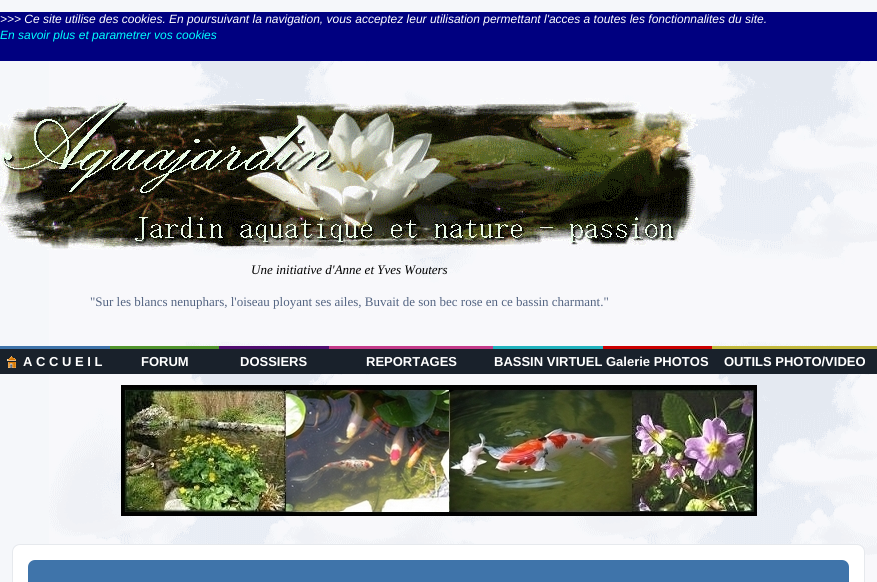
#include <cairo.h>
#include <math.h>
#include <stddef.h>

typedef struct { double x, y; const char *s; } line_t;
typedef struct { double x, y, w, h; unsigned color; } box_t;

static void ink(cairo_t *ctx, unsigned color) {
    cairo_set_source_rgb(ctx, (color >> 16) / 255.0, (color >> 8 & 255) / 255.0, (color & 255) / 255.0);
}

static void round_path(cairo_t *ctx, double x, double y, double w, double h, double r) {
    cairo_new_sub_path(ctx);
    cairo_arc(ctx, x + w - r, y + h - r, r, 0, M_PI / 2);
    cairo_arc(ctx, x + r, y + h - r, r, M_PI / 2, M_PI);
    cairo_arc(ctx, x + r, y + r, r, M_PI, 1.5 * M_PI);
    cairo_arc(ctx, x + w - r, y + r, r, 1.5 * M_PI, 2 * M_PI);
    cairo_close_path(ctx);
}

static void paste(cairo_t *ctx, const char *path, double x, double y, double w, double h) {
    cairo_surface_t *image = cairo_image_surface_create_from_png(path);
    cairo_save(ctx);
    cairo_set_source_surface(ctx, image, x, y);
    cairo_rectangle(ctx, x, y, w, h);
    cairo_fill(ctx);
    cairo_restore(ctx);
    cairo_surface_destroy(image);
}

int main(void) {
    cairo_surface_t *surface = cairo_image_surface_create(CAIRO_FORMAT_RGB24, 877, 582);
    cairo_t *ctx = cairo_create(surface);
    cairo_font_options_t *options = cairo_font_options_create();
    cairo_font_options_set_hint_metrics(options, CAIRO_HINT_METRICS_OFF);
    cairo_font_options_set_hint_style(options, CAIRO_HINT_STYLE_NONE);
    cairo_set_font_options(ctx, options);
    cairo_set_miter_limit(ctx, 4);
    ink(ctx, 0xF5F7FA);
    cairo_paint(ctx);
    paste(ctx, "media/1.png", 49, 61, 828, 521);
    ink(ctx, 0x000080);
    cairo_rectangle(ctx, 0, 12, 877, 49);
    cairo_fill(ctx);
    cairo_select_font_face(ctx, "Liberation Sans", CAIRO_FONT_SLANT_ITALIC, CAIRO_FONT_WEIGHT_NORMAL);
    cairo_set_font_size(ctx, 12);
    ink(ctx, 0xFFFFFF);
    cairo_move_to(ctx, 0, 23);
    cairo_show_text(ctx, ">>> Ce site utilise des cookies. En poursuivant la navigation, vous acceptez leur utilisation permettant l'acces a toutes les fonctionnalites du site.");
    ink(ctx, 0x00FFFF);
    cairo_move_to(ctx, 0, 39);
    cairo_show_text(ctx, "En savoir plus et parametrer vos cookies");
    paste(ctx, "media/2.png", 0, 98, 698, 152);
    cairo_select_font_face(ctx, "Liberation Serif", CAIRO_FONT_SLANT_ITALIC, CAIRO_FONT_WEIGHT_NORMAL);
    cairo_set_font_size(ctx, 13);
    ink(ctx, 0x000000);
    cairo_move_to(ctx, 251, 274);
    cairo_show_text(ctx, "Une initiative d'Anne et Yves Wouters");
    cairo_select_font_face(ctx, "Liberation Serif", CAIRO_FONT_SLANT_NORMAL, CAIRO_FONT_WEIGHT_NORMAL);
    ink(ctx, 0x536482);
    cairo_move_to(ctx, 90, 306);
    cairo_show_text(ctx, "\"Sur les blancs nenuphars, l'oiseau ployant ses ailes, Buvait de son bec rose en ce bassin charmant.\"");
    {
        static const box_t items[] = {
            {0, 346, 110, 3, 0x3F74AA},
            {110, 346, 109, 3, 0x52952D},
            {219, 346, 110, 3, 0x500E70},
            {329, 346, 164, 3, 0xC43C8A},
            {493, 346, 110, 3, 0x21B3BE},
            {603, 346, 109, 3, 0xCC0000},
            {712, 346, 165, 3, 0xC2B93D},
            {0, 349, 877, 25, 0x19212B},
        };
        for (size_t i = 0; i < sizeof items / sizeof *items; i++) {
            ink(ctx, items[i].color);
            cairo_rectangle(ctx, items[i].x, items[i].y, items[i].w, items[i].h);
            cairo_fill(ctx);
        }
    }
    paste(ctx, "media/3.png", 7, 356, 9, 12);
    cairo_select_font_face(ctx, "Liberation Sans", CAIRO_FONT_SLANT_NORMAL, CAIRO_FONT_WEIGHT_BOLD);
    ink(ctx, 0xFFFFFF);
    {
        static const line_t items[] = {
            {23, 366, "A C C U E I L"},
            {141, 366, "FORUM"},
            {240, 366, "DOSSIERS"},
            {366, 366, "REPORTAGES"},
            {494, 366, "BASSIN VIRTUEL"},
            {606, 366, "Galerie PHOTOS"},
            {724, 366, "OUTILS PHOTO/VIDEO"},
        };
        for (size_t i = 0; i < sizeof items / sizeof *items; i++) {
            cairo_move_to(ctx, items[i].x, items[i].y);
            cairo_show_text(ctx, items[i].s);
        }
    }
    paste(ctx, "media/4.png", 121, 385, 636, 131);
    round_path(ctx, 12.5, 544.5, 852, 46, 7.5);
    cairo_fill_preserve(ctx);
    ink(ctx, 0xE6E9ED);
    cairo_set_line_width(ctx, 1);
    cairo_stroke(ctx);
    ink(ctx, 0x3F74AA);
    round_path(ctx, 28, 560, 821, 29, 7);
    cairo_fill(ctx);
    cairo_surface_write_to_png(surface, "image.png");
    cairo_font_options_destroy(options);
    cairo_destroy(ctx);
    cairo_surface_destroy(surface);
    return 0;
}
